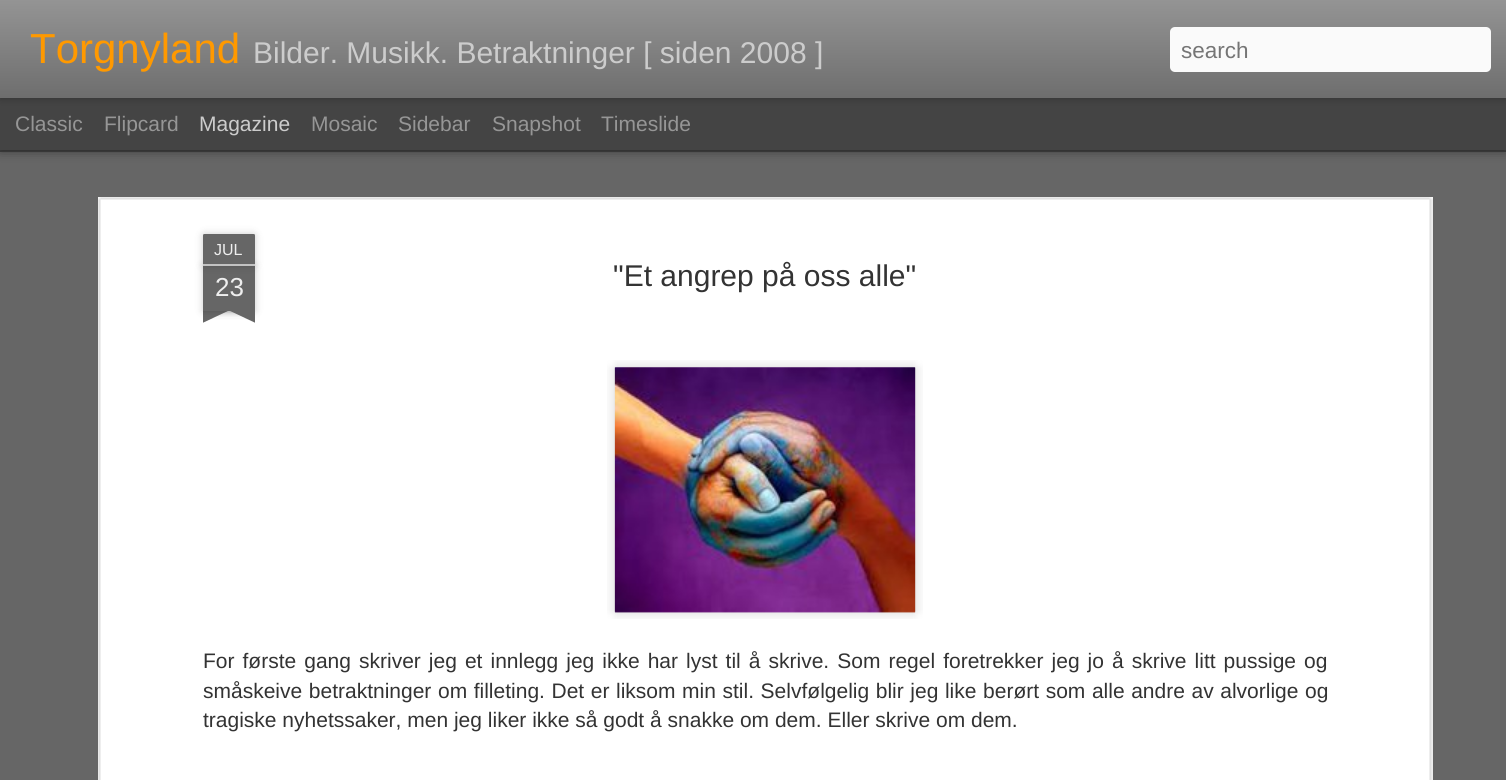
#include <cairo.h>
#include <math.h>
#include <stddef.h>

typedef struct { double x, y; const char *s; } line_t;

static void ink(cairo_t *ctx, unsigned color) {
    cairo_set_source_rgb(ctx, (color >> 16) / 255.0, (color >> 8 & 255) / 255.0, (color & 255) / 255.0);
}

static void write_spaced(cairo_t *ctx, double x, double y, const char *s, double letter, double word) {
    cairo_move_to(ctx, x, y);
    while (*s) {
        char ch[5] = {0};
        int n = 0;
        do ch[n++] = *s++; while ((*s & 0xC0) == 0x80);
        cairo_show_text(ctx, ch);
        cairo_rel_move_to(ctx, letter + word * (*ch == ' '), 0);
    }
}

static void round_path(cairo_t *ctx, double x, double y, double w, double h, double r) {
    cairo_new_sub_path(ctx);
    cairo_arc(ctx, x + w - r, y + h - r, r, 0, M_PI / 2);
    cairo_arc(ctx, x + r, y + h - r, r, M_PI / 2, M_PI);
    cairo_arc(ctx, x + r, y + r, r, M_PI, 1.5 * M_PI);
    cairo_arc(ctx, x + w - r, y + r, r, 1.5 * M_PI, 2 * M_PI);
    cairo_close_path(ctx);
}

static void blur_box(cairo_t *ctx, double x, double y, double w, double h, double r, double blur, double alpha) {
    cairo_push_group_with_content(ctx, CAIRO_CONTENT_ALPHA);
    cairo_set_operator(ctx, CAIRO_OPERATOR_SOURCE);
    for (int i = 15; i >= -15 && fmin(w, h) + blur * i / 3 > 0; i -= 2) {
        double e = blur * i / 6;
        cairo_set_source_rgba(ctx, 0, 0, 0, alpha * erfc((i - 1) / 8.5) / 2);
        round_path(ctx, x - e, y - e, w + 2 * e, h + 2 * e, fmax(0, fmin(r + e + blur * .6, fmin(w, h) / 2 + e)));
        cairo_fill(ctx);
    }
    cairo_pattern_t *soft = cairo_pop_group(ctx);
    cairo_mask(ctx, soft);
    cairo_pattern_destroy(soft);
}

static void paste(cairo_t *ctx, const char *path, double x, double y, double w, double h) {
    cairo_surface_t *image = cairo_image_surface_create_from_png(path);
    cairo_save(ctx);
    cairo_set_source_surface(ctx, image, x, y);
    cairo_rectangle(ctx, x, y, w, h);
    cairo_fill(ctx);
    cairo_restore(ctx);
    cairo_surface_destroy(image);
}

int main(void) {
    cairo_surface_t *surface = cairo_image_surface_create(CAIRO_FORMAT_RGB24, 1506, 780);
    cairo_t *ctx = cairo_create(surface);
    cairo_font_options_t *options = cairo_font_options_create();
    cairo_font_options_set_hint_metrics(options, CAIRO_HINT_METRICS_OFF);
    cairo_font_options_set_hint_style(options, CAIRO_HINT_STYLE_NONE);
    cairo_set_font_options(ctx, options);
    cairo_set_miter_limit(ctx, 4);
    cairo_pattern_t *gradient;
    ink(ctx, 0x444444);
    cairo_paint(ctx);
    ink(ctx, 0x666666);
    cairo_rectangle(ctx, 0, 152, 1506, 628);
    cairo_fill(ctx);
    ink(ctx, 0x000000);
    blur_box(ctx, 0, 98, 1506, 52, 0, 6, 0.5);
    ink(ctx, 0x444444);
    cairo_rectangle(ctx, 0, 98, 1506, 52);
    cairo_fill(ctx);
    ink(ctx, 0x000000);
    blur_box(ctx, 0, 0, 1506, 98, 0, 4, 0.3);
    gradient = cairo_pattern_create_linear(0, 0, 0, 98);
    cairo_pattern_add_color_stop_rgba(gradient, 0, 0.58, 0.58, 0.58, 1);
    cairo_pattern_add_color_stop_rgba(gradient, 1, 0.431, 0.431, 0.431, 1);
    cairo_set_source(ctx, gradient);
    cairo_pattern_destroy(gradient);
    cairo_rectangle(ctx, 0, 0, 1506, 98);
    cairo_fill(ctx);
    cairo_select_font_face(ctx, "Liberation Sans", CAIRO_FONT_SLANT_NORMAL, CAIRO_FONT_WEIGHT_NORMAL);
    cairo_set_font_size(ctx, 42);
    ink(ctx, 0xFF9900);
    cairo_move_to(ctx, 30, 63);
    cairo_show_text(ctx, "Torgnyland");
    cairo_set_font_size(ctx, 30);
    ink(ctx, 0xCCCCCC);
    cairo_move_to(ctx, 253, 63);
    cairo_show_text(ctx, "Bilder. Musikk. Betraktninger [ siden 2008 ]");
    ink(ctx, 0xFAFAFA);
    round_path(ctx, 1170, 27, 321, 45, 5);
    cairo_fill(ctx);
    cairo_set_font_size(ctx, 22.5);
    ink(ctx, 0x757575);
    cairo_move_to(ctx, 1181, 58);
    cairo_show_text(ctx, "search");
    cairo_set_font_size(ctx, 21);
    ink(ctx, 0x969696);
    cairo_move_to(ctx, 15, 131);
    cairo_show_text(ctx, "Classic");
    cairo_move_to(ctx, 104, 131);
    cairo_show_text(ctx, "Flipcard");
    ink(ctx, 0xCCCCCC);
    cairo_move_to(ctx, 199, 131);
    cairo_show_text(ctx, "Magazine");
    ink(ctx, 0x969696);
    {
        static const line_t items[] = {
            {311, 131, "Mosaic"},
            {398, 131, "Sidebar"},
            {492, 131, "Snapshot"},
            {601, 131, "Timeslide"},
        };
        for (size_t i = 0; i < sizeof items / sizeof *items; i++) {
            cairo_move_to(ctx, items[i].x, items[i].y);
            cairo_show_text(ctx, items[i].s);
        }
    }
    ink(ctx, 0xFFFFFF);
    cairo_rectangle(ctx, 98, 197, 1335, 583);
    cairo_fill(ctx);
    paste(ctx, "media/1.png", 98, 197, 1335, 583);
    ink(ctx, 0x000000);
    blur_box(ctx, 203, 266, 52, 45, 0, 4, 0.2);
    ink(ctx, 0x666666);
    cairo_rectangle(ctx, 203, 266, 52, 45);
    cairo_fill(ctx);
    ink(ctx, 0x000000);
    blur_box(ctx, 203, 234, 52, 32, 1.5, 4, 0.2);
    ink(ctx, 0x666666);
    cairo_new_path(ctx);
    cairo_move_to(ctx, 204.5, 234);
    cairo_line_to(ctx, 253.5, 234);
    cairo_curve_to(ctx, 254.5, 234, 255, 234.5, 255, 235.5);
    cairo_line_to(ctx, 255, 266);
    cairo_line_to(ctx, 203, 266);
    cairo_line_to(ctx, 203, 235.5);
    cairo_curve_to(ctx, 203, 234.5, 203.5, 234, 204.5, 234);
    cairo_close_path(ctx);
    cairo_fill(ctx);
    ink(ctx, 0xC2C2C2);
    cairo_rectangle(ctx, 203, 264, 52, 2);
    cairo_fill(ctx);
    cairo_set_font_size(ctx, 16);
    ink(ctx, 0xEEEEEE);
    cairo_move_to(ctx, 214, 255);
    cairo_show_text(ctx, "JUL");
    cairo_set_font_size(ctx, 26);
    cairo_move_to(ctx, 215, 296);
    cairo_show_text(ctx, "23");
    cairo_save(ctx);
    cairo_rectangle(ctx, 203, 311, 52, 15);
    cairo_clip(ctx);
    ink(ctx, 0x000000);
    blur_box(ctx, 189, 296, 75, 15, 0, 4, 0.2);
    cairo_restore(ctx);
    cairo_save(ctx);
    cairo_rectangle(ctx, 203, 311, 52, 15);
    cairo_clip(ctx);
    ink(ctx, 0x666666);
    cairo_new_path(ctx);
    cairo_move_to(ctx, 189, 312);
    cairo_line_to(ctx, 257, 280);
    cairo_line_to(ctx, 264, 294);
    cairo_line_to(ctx, 196, 326);
    cairo_close_path(ctx);
    cairo_fill(ctx);
    cairo_restore(ctx);
    cairo_save(ctx);
    cairo_rectangle(ctx, 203, 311, 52, 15);
    cairo_clip(ctx);
    ink(ctx, 0x000000);
    blur_box(ctx, 194, 296, 75, 15, 0, 4, 0.2);
    cairo_restore(ctx);
    cairo_save(ctx);
    cairo_rectangle(ctx, 203, 311, 52, 15);
    cairo_clip(ctx);
    ink(ctx, 0x666666);
    cairo_new_path(ctx);
    cairo_move_to(ctx, 200, 280);
    cairo_line_to(ctx, 268, 312);
    cairo_line_to(ctx, 262, 326);
    cairo_line_to(ctx, 194, 294);
    cairo_close_path(ctx);
    cairo_fill(ctx);
    cairo_restore(ctx);
    cairo_set_font_size(ctx, 30);
    ink(ctx, 0x333333);
    cairo_move_to(ctx, 613, 286);
    cairo_show_text(ctx, "\"Et angrep på oss alle\"");
    paste(ctx, "media/2.png", 607, 360, 316, 259);
    paste(ctx, "media/3.png", 614, 367, 302, 246);
    cairo_set_font_size(ctx, 21);
    write_spaced(ctx, 203, 668, "For første gang skriver jeg et innlegg jeg ikke har lyst til å skrive. Som regel foretrekker jeg jo å skrive litt pussige og", 0, 2.2);
    write_spaced(ctx, 203, 698, "småskeive betraktninger om filleting. Det er liksom min stil. Selvfølgelig blir jeg like berørt som alle andre av alvorlige og", 0, 0.75);
    cairo_move_to(ctx, 203, 727);
    cairo_show_text(ctx, "tragiske nyhetssaker, men jeg liker ikke så godt å snakke om dem. Eller skrive om dem.");
    cairo_surface_write_to_png(surface, "image.png");
    cairo_font_options_destroy(options);
    cairo_destroy(ctx);
    cairo_surface_destroy(surface);
    return 0;
}
